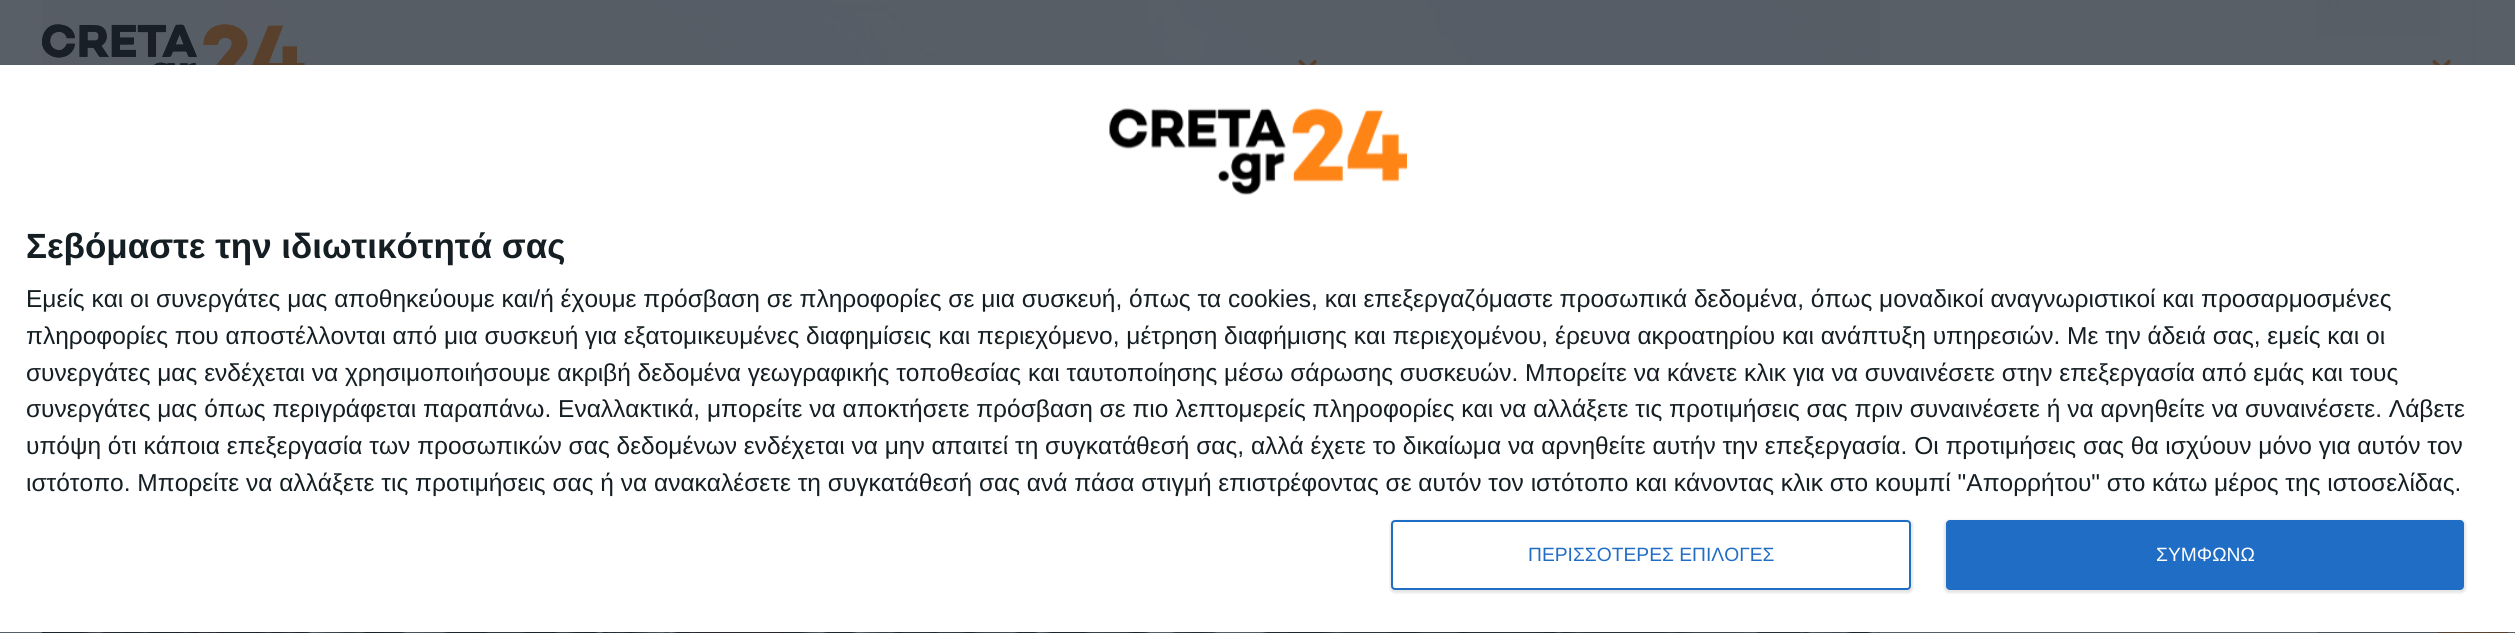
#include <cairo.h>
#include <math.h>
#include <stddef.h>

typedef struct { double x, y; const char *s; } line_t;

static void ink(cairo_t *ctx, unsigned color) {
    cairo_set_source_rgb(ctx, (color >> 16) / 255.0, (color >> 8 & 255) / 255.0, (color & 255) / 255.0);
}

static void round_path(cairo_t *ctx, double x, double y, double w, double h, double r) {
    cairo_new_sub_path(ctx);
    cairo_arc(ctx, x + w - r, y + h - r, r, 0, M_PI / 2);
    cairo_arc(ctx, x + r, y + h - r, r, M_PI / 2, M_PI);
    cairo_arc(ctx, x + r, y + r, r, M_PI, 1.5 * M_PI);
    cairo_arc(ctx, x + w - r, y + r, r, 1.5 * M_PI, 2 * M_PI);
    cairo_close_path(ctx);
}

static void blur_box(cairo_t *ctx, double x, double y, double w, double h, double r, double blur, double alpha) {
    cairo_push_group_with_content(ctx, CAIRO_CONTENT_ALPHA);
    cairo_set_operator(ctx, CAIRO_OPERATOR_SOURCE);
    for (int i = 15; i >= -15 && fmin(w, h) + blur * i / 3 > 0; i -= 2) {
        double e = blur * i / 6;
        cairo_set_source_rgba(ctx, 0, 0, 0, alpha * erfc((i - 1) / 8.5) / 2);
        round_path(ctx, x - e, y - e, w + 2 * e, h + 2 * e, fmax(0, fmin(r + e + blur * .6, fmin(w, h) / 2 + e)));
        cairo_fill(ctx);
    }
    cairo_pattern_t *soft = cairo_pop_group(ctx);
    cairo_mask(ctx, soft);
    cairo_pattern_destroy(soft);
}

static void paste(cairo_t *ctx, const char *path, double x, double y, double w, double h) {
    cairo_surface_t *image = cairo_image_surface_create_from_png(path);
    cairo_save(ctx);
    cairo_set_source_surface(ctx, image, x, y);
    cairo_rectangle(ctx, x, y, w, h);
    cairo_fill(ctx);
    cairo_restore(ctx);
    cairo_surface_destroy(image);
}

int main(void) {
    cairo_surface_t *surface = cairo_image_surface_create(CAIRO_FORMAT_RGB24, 2515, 633);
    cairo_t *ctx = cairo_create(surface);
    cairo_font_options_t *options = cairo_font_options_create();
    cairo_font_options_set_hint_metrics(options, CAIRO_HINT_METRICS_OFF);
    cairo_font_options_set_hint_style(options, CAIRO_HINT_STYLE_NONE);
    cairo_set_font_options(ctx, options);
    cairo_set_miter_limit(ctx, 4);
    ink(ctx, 0x595F67);
    cairo_paint(ctx);
    paste(ctx, "media/1.png", 42, 0, 1838, 633);
    cairo_rectangle(ctx, 1933, -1, 541, 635);
    ink(ctx, 0x535962);
    cairo_stroke(ctx);
    paste(ctx, "media/2.png", 2317, 0, 123, 36);
    paste(ctx, "media/3.png", 2317, 632, 121, 1);
    cairo_set_source_rgba(ctx, 0.349, 0.373, 0.404, 0.97);
    cairo_rectangle(ctx, 42, 0, 2433, 65);
    cairo_fill(ctx);
    paste(ctx, "media/4.png", 42, 24, 263, 41);
    paste(ctx, "media/5.png", 1298, 59, 19, 6);
    paste(ctx, "media/6.png", 2432, 59, 19, 6);
    ink(ctx, 0xFFFFFF);
    cairo_rectangle(ctx, 0, 65, 2515, 567);
    cairo_fill(ctx);
    paste(ctx, "media/7.png", 1109, 108, 298, 87);
    cairo_select_font_face(ctx, "Liberation Sans", CAIRO_FONT_SLANT_NORMAL, CAIRO_FONT_WEIGHT_BOLD);
    cairo_set_font_size(ctx, 35);
    ink(ctx, 0x141E23);
    cairo_move_to(ctx, 26, 258);
    cairo_show_text(ctx, "Σεβόμαστε την ιδιωτικότητά σας");
    cairo_select_font_face(ctx, "Liberation Sans", CAIRO_FONT_SLANT_NORMAL, CAIRO_FONT_WEIGHT_NORMAL);
    cairo_set_font_size(ctx, 24.5);
    {
        static const line_t items[] = {
            {26, 307, "Εμείς και οι συνεργάτες μας αποθηκεύουμε και/ή έχουμε πρόσβαση σε πληροφορίες σε μια συσκευή, όπως τα cookies, και επεξεργαζόμαστε προσωπικά δεδομένα, όπως μοναδικοί αναγνωριστικοί και προσαρμοσμένες"},
            {26, 344, "πληροφορίες που αποστέλλονται από μια συσκευή για εξατομικευμένες διαφημίσεις και περιεχόμενο, μέτρηση διαφήμισης και περιεχομένου, έρευνα ακροατηρίου και ανάπτυξη υπηρεσιών. Με την άδειά σας, εμείς και οι"},
            {26, 381, "συνεργάτες μας ενδέχεται να χρησιμοποιήσουμε ακριβή δεδομένα γεωγραφικής τοποθεσίας και ταυτοποίησης μέσω σάρωσης συσκευών. Μπορείτε να κάνετε κλικ για να συναινέσετε στην επεξεργασία από εμάς και τους"},
            {26, 417, "συνεργάτες μας όπως περιγράφεται παραπάνω. Εναλλακτικά, μπορείτε να αποκτήσετε πρόσβαση σε πιο λεπτομερείς πληροφορίες και να αλλάξετε τις προτιμήσεις σας πριν συναινέσετε ή να αρνηθείτε να συναινέσετε. Λάβετε"},
            {26, 454, "υπόψη ότι κάποια επεξεργασία των προσωπικών σας δεδομένων ενδέχεται να μην απαιτεί τη συγκατάθεσή σας, αλλά έχετε το δικαίωμα να αρνηθείτε αυτήν την επεξεργασία. Οι προτιμήσεις σας θα ισχύουν μόνο για αυτόν τον"},
            {26, 491, "ιστότοπο. Μπορείτε να αλλάξετε τις προτιμήσεις σας ή να ανακαλέσετε τη συγκατάθεσή σας ανά πάσα στιγμή επιστρέφοντας σε αυτόν τον ιστότοπο και κάνοντας κλικ στο κουμπί \"Απορρήτου\" στο κάτω μέρος της ιστοσελίδας."},
        };
        for (size_t i = 0; i < sizeof items / sizeof *items; i++) {
            cairo_move_to(ctx, items[i].x, items[i].y);
            cairo_show_text(ctx, items[i].s);
        }
    }
    ink(ctx, 0x000000);
    blur_box(ctx, 1390, 520, 523, 73, 5, 1, 0.1);
    ink(ctx, 0xFFFFFF);
    round_path(ctx, 1392, 521, 518, 68, 3);
    cairo_fill_preserve(ctx);
    ink(ctx, 0x206DC5);
    cairo_stroke(ctx);
    cairo_set_font_size(ctx, 19.25);
    cairo_move_to(ctx, 1528, 561);
    cairo_show_text(ctx, "ΠΕΡΙΣΣΟΤΕΡΕΣ ΕΠΙΛΟΓΕΣ");
    ink(ctx, 0x000000);
    blur_box(ctx, 1944, 520, 522, 73, 5, 1, 0.1);
    ink(ctx, 0x206DC5);
    round_path(ctx, 1946, 520, 518, 70, 4);
    cairo_fill(ctx);
    ink(ctx, 0xFFFFFF);
    cairo_move_to(ctx, 2156, 561);
    cairo_show_text(ctx, "ΣΥΜΦΩΝΩ");
    ink(ctx, 0x59402D);
    cairo_rectangle(ctx, 2438, 632, 70, 1);
    cairo_fill(ctx);
    paste(ctx, "media/8.png", 2460, 632, 25, 1);
    cairo_surface_write_to_png(surface, "image.png");
    cairo_font_options_destroy(options);
    cairo_destroy(ctx);
    cairo_surface_destroy(surface);
    return 0;
}
